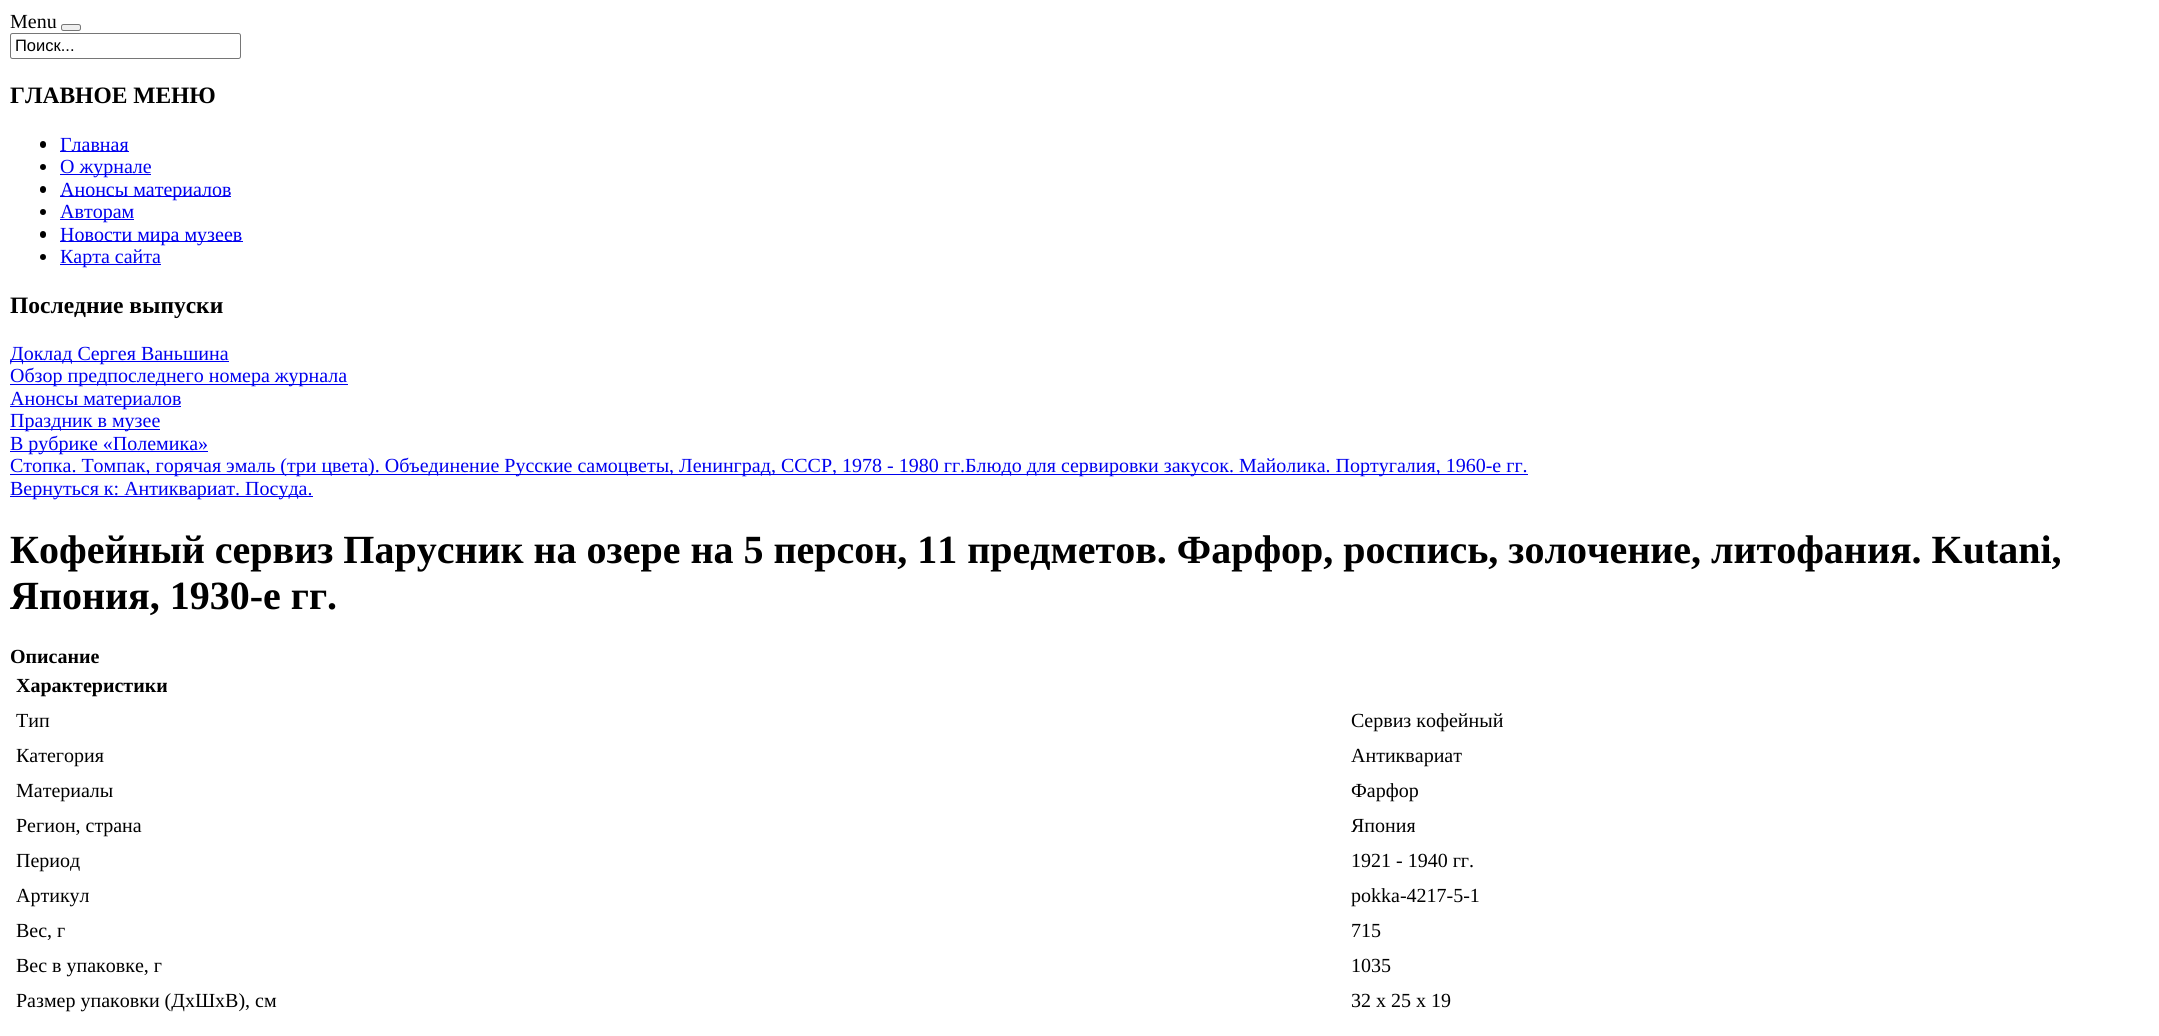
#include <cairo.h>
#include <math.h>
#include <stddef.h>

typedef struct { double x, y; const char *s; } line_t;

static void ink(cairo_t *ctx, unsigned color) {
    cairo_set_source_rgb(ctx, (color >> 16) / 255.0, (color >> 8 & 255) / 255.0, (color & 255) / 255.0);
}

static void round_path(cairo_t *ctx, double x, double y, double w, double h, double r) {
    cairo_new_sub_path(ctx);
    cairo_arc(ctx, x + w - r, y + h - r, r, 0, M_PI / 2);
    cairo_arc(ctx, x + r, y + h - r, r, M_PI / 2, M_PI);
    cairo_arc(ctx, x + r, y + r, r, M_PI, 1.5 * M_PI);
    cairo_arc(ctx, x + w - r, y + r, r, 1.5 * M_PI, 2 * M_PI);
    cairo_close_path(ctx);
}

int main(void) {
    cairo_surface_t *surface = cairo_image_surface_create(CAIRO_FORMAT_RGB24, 2159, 1036);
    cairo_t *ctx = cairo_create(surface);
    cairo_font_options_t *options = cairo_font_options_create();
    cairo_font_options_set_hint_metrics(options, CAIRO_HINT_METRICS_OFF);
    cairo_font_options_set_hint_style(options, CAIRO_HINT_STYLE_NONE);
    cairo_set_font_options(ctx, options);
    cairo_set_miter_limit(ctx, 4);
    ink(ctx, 0xFFFFFF);
    cairo_paint(ctx);
    cairo_select_font_face(ctx, "Liberation Serif", CAIRO_FONT_SLANT_NORMAL, CAIRO_FONT_WEIGHT_NORMAL);
    cairo_set_font_size(ctx, 20);
    ink(ctx, 0x000000);
    cairo_move_to(ctx, 10, 28);
    cairo_show_text(ctx, "Menu");
    ink(ctx, 0xEFEFEF);
    round_path(ctx, 61.5, 24.5, 19, 6, 2);
    cairo_fill_preserve(ctx);
    ink(ctx, 0x767676);
    cairo_set_line_width(ctx, 1);
    cairo_stroke(ctx);
    round_path(ctx, 10.5, 33.5, 230, 25, 2);
    cairo_stroke(ctx);
    cairo_select_font_face(ctx, "Liberation Sans", CAIRO_FONT_SLANT_NORMAL, CAIRO_FONT_WEIGHT_NORMAL);
    cairo_set_font_size(ctx, 16.5);
    ink(ctx, 0x000000);
    cairo_move_to(ctx, 15, 51);
    cairo_show_text(ctx, "Поиск...");
    cairo_select_font_face(ctx, "Liberation Serif", CAIRO_FONT_SLANT_NORMAL, CAIRO_FONT_WEIGHT_BOLD);
    cairo_set_font_size(ctx, 23.5);
    cairo_move_to(ctx, 10, 103);
    cairo_show_text(ctx, "ГЛАВНОЕ МЕНЮ");
    round_path(ctx, 40, 141, 6, 7, 3);
    cairo_fill(ctx);
    ink(ctx, 0x0000EE);
    cairo_rectangle(ctx, 60, 151, 69, 1);
    cairo_fill(ctx);
    cairo_select_font_face(ctx, "Liberation Serif", CAIRO_FONT_SLANT_NORMAL, CAIRO_FONT_WEIGHT_NORMAL);
    cairo_set_font_size(ctx, 20);
    cairo_move_to(ctx, 60, 151);
    cairo_show_text(ctx, "Главная");
    ink(ctx, 0x000000);
    cairo_new_path(ctx);
    cairo_arc(ctx, 43, 167, 3, 0, 2 * M_PI);
    cairo_fill(ctx);
    ink(ctx, 0x0000EE);
    cairo_rectangle(ctx, 60, 174, 91, 1);
    cairo_fill(ctx);
    cairo_move_to(ctx, 60, 173);
    cairo_show_text(ctx, "О журнале");
    ink(ctx, 0x000000);
    round_path(ctx, 40, 186, 6, 7, 3);
    cairo_fill(ctx);
    ink(ctx, 0x0000EE);
    cairo_rectangle(ctx, 60, 196, 171, 1);
    cairo_fill(ctx);
    cairo_move_to(ctx, 60, 196);
    cairo_show_text(ctx, "Анонсы материалов");
    ink(ctx, 0x000000);
    cairo_new_path(ctx);
    cairo_arc(ctx, 43, 212, 3, 0, 2 * M_PI);
    cairo_fill(ctx);
    ink(ctx, 0x0000EE);
    cairo_rectangle(ctx, 60, 219, 74, 1);
    cairo_fill(ctx);
    cairo_move_to(ctx, 60, 218);
    cairo_show_text(ctx, "Авторам");
    ink(ctx, 0x000000);
    round_path(ctx, 40, 231, 6, 7, 3);
    cairo_fill(ctx);
    ink(ctx, 0x0000EE);
    cairo_rectangle(ctx, 60, 241, 183, 1);
    cairo_fill(ctx);
    cairo_move_to(ctx, 60, 241);
    cairo_show_text(ctx, "Новости мира музеев");
    ink(ctx, 0x000000);
    cairo_new_path(ctx);
    cairo_arc(ctx, 43, 257, 3, 0, 2 * M_PI);
    cairo_fill(ctx);
    ink(ctx, 0x0000EE);
    cairo_rectangle(ctx, 60, 264, 101, 1);
    cairo_fill(ctx);
    cairo_move_to(ctx, 60, 263);
    cairo_show_text(ctx, "Карта сайта");
    cairo_select_font_face(ctx, "Liberation Serif", CAIRO_FONT_SLANT_NORMAL, CAIRO_FONT_WEIGHT_BOLD);
    cairo_set_font_size(ctx, 23.5);
    ink(ctx, 0x000000);
    cairo_move_to(ctx, 10, 313);
    cairo_show_text(ctx, "Последние выпуски");
    ink(ctx, 0x0000EE);
    cairo_rectangle(ctx, 10, 361, 219, 1);
    cairo_fill(ctx);
    cairo_select_font_face(ctx, "Liberation Serif", CAIRO_FONT_SLANT_NORMAL, CAIRO_FONT_WEIGHT_NORMAL);
    cairo_set_font_size(ctx, 20);
    cairo_move_to(ctx, 10, 360);
    cairo_show_text(ctx, "Доклад Сергея Ваньшина");
    cairo_rectangle(ctx, 10, 384, 338, 1);
    cairo_fill(ctx);
    cairo_move_to(ctx, 10, 382);
    cairo_show_text(ctx, "Обзор предпоследнего номера журнала");
    cairo_rectangle(ctx, 10, 406, 171, 1);
    cairo_fill(ctx);
    cairo_move_to(ctx, 10, 405);
    cairo_show_text(ctx, "Анонсы материалов");
    cairo_rectangle(ctx, 10, 429, 150, 1);
    cairo_fill(ctx);
    cairo_move_to(ctx, 10, 427);
    cairo_show_text(ctx, "Праздник в музее");
    cairo_rectangle(ctx, 10, 451, 198, 1);
    cairo_fill(ctx);
    cairo_move_to(ctx, 10, 450);
    cairo_show_text(ctx, "В рубрике «Полемика»");
    cairo_rectangle(ctx, 10, 474, 1518, 1);
    cairo_fill(ctx);
    cairo_move_to(ctx, 10, 472);
    cairo_show_text(ctx, "Стопка. Томпак, горячая эмаль (три цвета). Объединение Русские самоцветы, Ленинград, СССР, 1978 - 1980 гг.Блюдо для сервировки закусок. Майолика. Португалия, 1960-е гг.");
    cairo_rectangle(ctx, 10, 496, 303, 1);
    cairo_fill(ctx);
    cairo_move_to(ctx, 10, 495);
    cairo_show_text(ctx, "Вернуться к: Антиквариат. Посуда.");
    cairo_select_font_face(ctx, "Liberation Serif", CAIRO_FONT_SLANT_NORMAL, CAIRO_FONT_WEIGHT_BOLD);
    cairo_set_font_size(ctx, 40);
    ink(ctx, 0x000000);
    cairo_move_to(ctx, 10, 563);
    cairo_show_text(ctx, "Кофейный сервиз Парусник на озере на 5 персон, 11 предметов. Фарфор, роспись, золочение, литофания. Kutani,");
    cairo_move_to(ctx, 10, 609);
    cairo_show_text(ctx, "Япония, 1930-е гг.");
    cairo_set_font_size(ctx, 20);
    cairo_move_to(ctx, 10, 663);
    cairo_show_text(ctx, "Описание");
    cairo_move_to(ctx, 16, 692);
    cairo_show_text(ctx, "Характеристики");
    cairo_select_font_face(ctx, "Liberation Serif", CAIRO_FONT_SLANT_NORMAL, CAIRO_FONT_WEIGHT_NORMAL);
    {
        static const line_t items[] = {
            {16, 727, "Тип"},
            {1351, 727, "Сервиз кофейный"},
            {16, 762, "Категория"},
            {1351, 762, "Антиквариат"},
            {16, 797, "Материалы"},
            {1351, 797, "Фарфор"},
            {16, 832, "Регион, страна"},
            {1351, 832, "Япония"},
            {16, 867, "Период"},
            {1351, 867, "1921 - 1940 гг."},
            {16, 902, "Артикул"},
            {1351, 902, "pokka-4217-5-1"},
            {16, 937, "Вес, г"},
            {1351, 937, "715"},
            {16, 972, "Вес в упаковке, г"},
            {1351, 972, "1035"},
            {16, 1007, "Размер упаковки (ДхШхВ), см"},
            {1351, 1007, "32 x 25 x 19"},
        };
        for (size_t i = 0; i < sizeof items / sizeof *items; i++) {
            cairo_move_to(ctx, items[i].x, items[i].y);
            cairo_show_text(ctx, items[i].s);
        }
    }
    cairo_surface_write_to_png(surface, "image.png");
    cairo_font_options_destroy(options);
    cairo_destroy(ctx);
    cairo_surface_destroy(surface);
    return 0;
}
